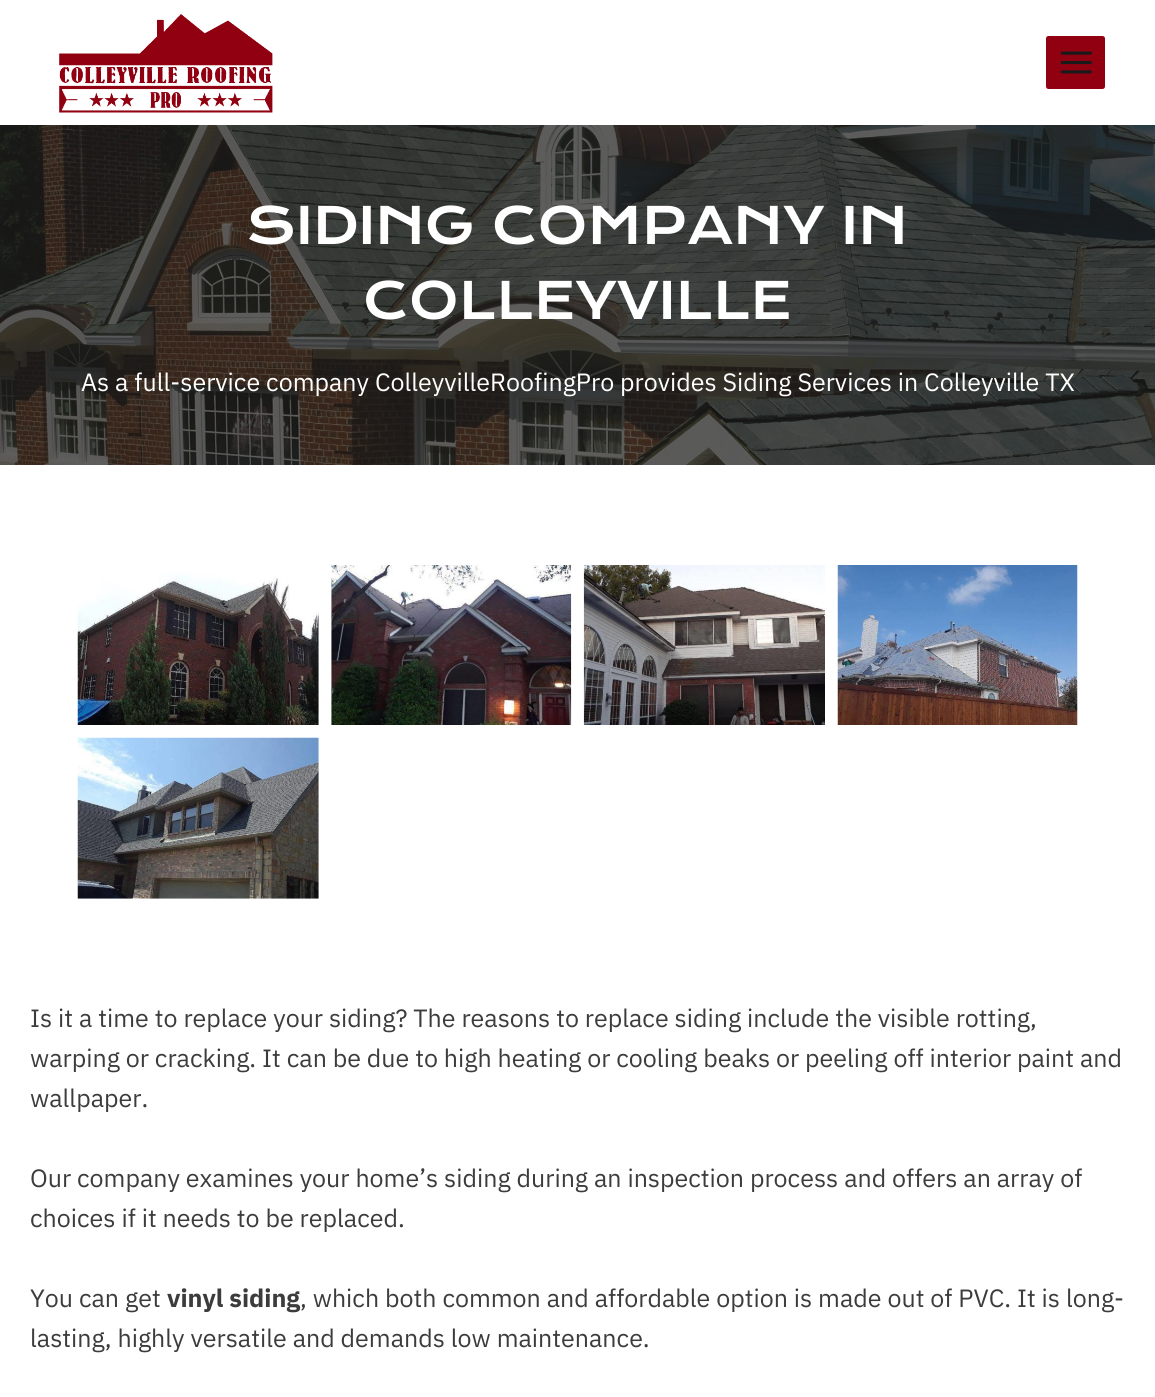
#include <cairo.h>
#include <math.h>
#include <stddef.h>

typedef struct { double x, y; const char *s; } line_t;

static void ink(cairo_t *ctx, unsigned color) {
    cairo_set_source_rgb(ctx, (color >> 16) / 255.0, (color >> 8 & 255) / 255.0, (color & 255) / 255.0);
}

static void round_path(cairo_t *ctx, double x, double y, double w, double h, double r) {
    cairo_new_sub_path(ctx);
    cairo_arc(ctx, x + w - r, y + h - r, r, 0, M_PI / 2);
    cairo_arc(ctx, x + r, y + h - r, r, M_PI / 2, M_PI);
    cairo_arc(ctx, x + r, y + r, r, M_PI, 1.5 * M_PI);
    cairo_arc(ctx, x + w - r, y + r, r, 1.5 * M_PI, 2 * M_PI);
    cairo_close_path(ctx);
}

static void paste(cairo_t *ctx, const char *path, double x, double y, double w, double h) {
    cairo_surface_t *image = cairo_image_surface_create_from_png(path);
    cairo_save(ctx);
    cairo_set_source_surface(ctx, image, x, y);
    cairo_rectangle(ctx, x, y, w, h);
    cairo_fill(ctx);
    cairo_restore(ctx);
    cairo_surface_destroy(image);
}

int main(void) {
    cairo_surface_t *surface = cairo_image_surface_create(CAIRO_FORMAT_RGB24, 1155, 1397);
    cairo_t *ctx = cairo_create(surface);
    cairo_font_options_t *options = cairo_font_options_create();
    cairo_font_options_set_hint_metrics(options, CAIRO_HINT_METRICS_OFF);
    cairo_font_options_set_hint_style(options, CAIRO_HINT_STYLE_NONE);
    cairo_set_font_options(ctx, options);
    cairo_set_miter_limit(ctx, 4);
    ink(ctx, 0xFFFFFF);
    cairo_paint(ctx);
    paste(ctx, "media/1.png", 59, 14, 214, 99);
    ink(ctx, 0x900010);
    round_path(ctx, 1046, 36, 59, 53, 2.5);
    cairo_fill(ctx);
    paste(ctx, "media/2.png", 1060, 51, 32, 23);
    paste(ctx, "media/3.png", 0, 125, 1155, 340);
    cairo_select_font_face(ctx, "Krona One", CAIRO_FONT_SLANT_NORMAL, CAIRO_FONT_WEIGHT_NORMAL);
    cairo_set_font_size(ctx, 50);
    ink(ctx, 0xFFFFFF);
    cairo_move_to(ctx, 246, 244);
    cairo_show_text(ctx, "SIDING COMPANY IN");
    cairo_move_to(ctx, 363, 319);
    cairo_show_text(ctx, "COLLEYVILLE");
    cairo_select_font_face(ctx, "IBM Plex Sans", CAIRO_FONT_SLANT_NORMAL, CAIRO_FONT_WEIGHT_NORMAL);
    cairo_set_font_size(ctx, 25);
    cairo_move_to(ctx, 81, 391);
    cairo_show_text(ctx, "As a full-service company ColleyvilleRoofingPro provides Siding Services in Colleyville TX");
    paste(ctx, "media/4.png", 77, 572, 242, 153);
    paste(ctx, "media/5.png", 331, 565, 241, 160);
    paste(ctx, "media/6.png", 583, 565, 242, 160);
    paste(ctx, "media/7.png", 837, 565, 241, 160);
    paste(ctx, "media/8.png", 77, 737, 242, 162);
    ink(ctx, 0x3C3C3C);
    {
        static const line_t items[] = {
            {30, 1027, "Is it a time to replace your siding? The reasons to replace siding include the visible rotting,"},
            {30, 1067, "warping or cracking. It can be due to high heating or cooling beaks or peeling off interior paint and"},
            {30, 1107, "wallpaper."},
            {30, 1187, "Our company examines your home’s siding during an inspection process and offers an array of"},
            {30, 1227, "choices if it needs to be replaced."},
            {30, 1307, "You can get"},
        };
        for (size_t i = 0; i < sizeof items / sizeof *items; i++) {
            cairo_move_to(ctx, items[i].x, items[i].y);
            cairo_show_text(ctx, items[i].s);
        }
    }
    cairo_select_font_face(ctx, "IBM Plex Sans", CAIRO_FONT_SLANT_NORMAL, CAIRO_FONT_WEIGHT_BOLD);
    cairo_move_to(ctx, 167, 1307);
    cairo_show_text(ctx, "vinyl siding");
    cairo_select_font_face(ctx, "IBM Plex Sans", CAIRO_FONT_SLANT_NORMAL, CAIRO_FONT_WEIGHT_NORMAL);
    cairo_move_to(ctx, 300, 1307);
    cairo_show_text(ctx, ", which both common and affordable option is made out of PVC. It is long-");
    cairo_move_to(ctx, 30, 1347);
    cairo_show_text(ctx, "lasting, highly versatile and demands low maintenance.");
    cairo_surface_write_to_png(surface, "image.png");
    cairo_font_options_destroy(options);
    cairo_destroy(ctx);
    cairo_surface_destroy(surface);
    return 0;
}
